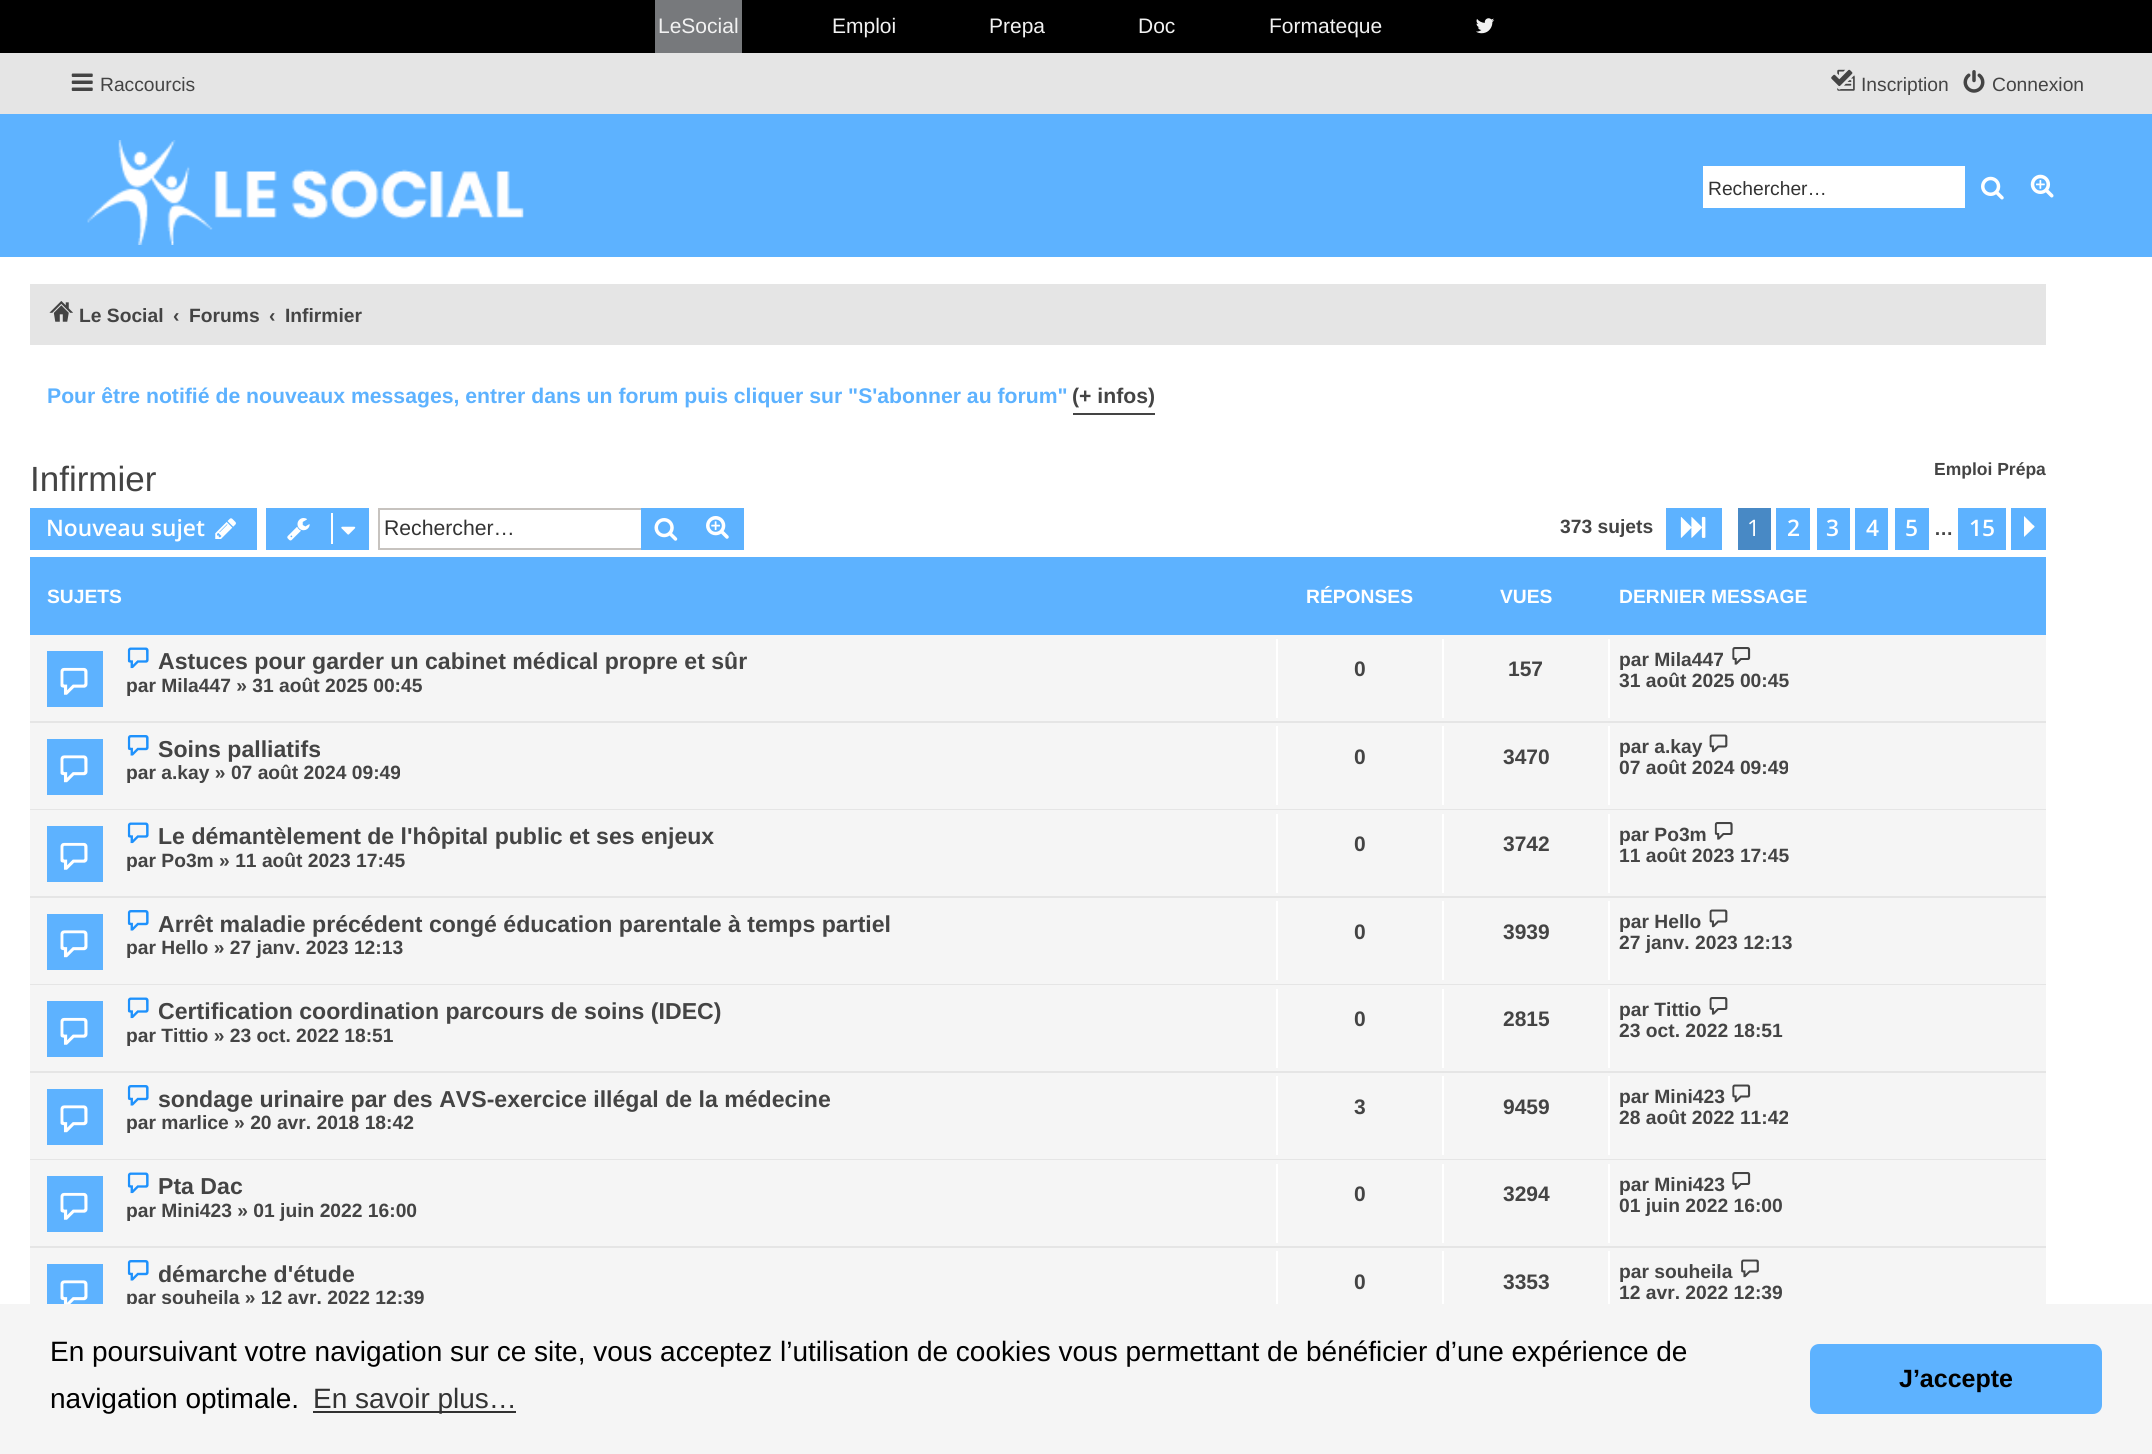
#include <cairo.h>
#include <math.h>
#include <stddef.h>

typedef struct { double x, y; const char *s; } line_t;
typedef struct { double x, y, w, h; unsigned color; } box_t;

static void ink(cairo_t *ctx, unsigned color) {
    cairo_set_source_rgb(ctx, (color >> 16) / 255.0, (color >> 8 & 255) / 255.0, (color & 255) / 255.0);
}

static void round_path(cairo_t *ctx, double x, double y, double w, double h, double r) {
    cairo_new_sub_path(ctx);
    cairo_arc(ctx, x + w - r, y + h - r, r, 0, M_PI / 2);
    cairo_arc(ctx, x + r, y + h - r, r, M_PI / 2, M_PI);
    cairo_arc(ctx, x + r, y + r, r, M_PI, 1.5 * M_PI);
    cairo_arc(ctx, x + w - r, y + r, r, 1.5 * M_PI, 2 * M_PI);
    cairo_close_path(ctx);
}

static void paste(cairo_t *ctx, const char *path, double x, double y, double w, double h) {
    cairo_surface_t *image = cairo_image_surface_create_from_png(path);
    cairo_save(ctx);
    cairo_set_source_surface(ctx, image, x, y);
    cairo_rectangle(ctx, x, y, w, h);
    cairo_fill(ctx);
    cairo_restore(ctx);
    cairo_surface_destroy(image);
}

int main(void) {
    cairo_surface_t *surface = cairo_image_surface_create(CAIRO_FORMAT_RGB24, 2152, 1454);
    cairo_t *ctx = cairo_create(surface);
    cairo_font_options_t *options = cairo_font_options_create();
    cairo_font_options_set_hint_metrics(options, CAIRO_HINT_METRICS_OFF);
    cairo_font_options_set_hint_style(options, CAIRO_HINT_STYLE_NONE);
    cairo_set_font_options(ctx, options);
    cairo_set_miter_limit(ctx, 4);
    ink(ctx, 0xFFFFFF);
    cairo_paint(ctx);
    ink(ctx, 0x000000);
    cairo_rectangle(ctx, 0, 0, 2152, 53);
    cairo_fill(ctx);
    ink(ctx, 0x77797C);
    cairo_rectangle(ctx, 655, 0, 87, 53);
    cairo_fill(ctx);
    cairo_select_font_face(ctx, "Liberation Sans", CAIRO_FONT_SLANT_NORMAL, CAIRO_FONT_WEIGHT_NORMAL);
    cairo_set_font_size(ctx, 21);
    ink(ctx, 0xF2F2F2);
    {
        static const line_t items[] = {
            {658, 33, "LeSocial"},
            {832, 33, "Emploi"},
            {989, 33, "Prepa"},
            {1138, 33, "Doc"},
            {1269, 33, "Formateque"},
        };
        for (size_t i = 0; i < sizeof items / sizeof *items; i++) {
            cairo_move_to(ctx, items[i].x, items[i].y);
            cairo_show_text(ctx, items[i].s);
        }
    }
    paste(ctx, "media/1.png", 1476, 18, 19, 16);
    ink(ctx, 0xE5E5E5);
    cairo_rectangle(ctx, 0, 53, 2152, 61);
    cairo_fill(ctx);
    paste(ctx, "media/2.png", 71, 73, 22, 18);
    cairo_set_font_size(ctx, 19.25);
    ink(ctx, 0x444444);
    cairo_move_to(ctx, 100, 91);
    cairo_show_text(ctx, "Raccourcis");
    paste(ctx, "media/3.png", 1831, 69, 24, 22);
    cairo_move_to(ctx, 1861, 91);
    cairo_show_text(ctx, "Inscription");
    paste(ctx, "media/4.png", 1963, 70, 22, 23);
    cairo_move_to(ctx, 1992, 91);
    cairo_show_text(ctx, "Connexion");
    ink(ctx, 0x5DB2FF);
    cairo_rectangle(ctx, 0, 114, 2152, 143);
    cairo_fill(ctx);
    paste(ctx, "media/5.png", 87, 140, 437, 105);
    ink(ctx, 0xFFFFFF);
    cairo_rectangle(ctx, 1703, 166, 262, 42);
    cairo_fill(ctx);
    ink(ctx, 0x333333);
    cairo_move_to(ctx, 1708, 195);
    cairo_show_text(ctx, "Rechercher…");
    paste(ctx, "media/6.png", 1981, 176, 23, 24);
    paste(ctx, "media/7.png", 2030, 174, 24, 24);
    ink(ctx, 0xE5E5E5);
    cairo_rectangle(ctx, 30, 284, 2016, 61);
    cairo_fill(ctx);
    paste(ctx, "media/8.png", 49, 301, 24, 21);
    cairo_select_font_face(ctx, "Liberation Sans", CAIRO_FONT_SLANT_NORMAL, CAIRO_FONT_WEIGHT_BOLD);
    ink(ctx, 0x444444);
    {
        static const line_t items[] = {
            {79, 322, "Le Social"},
            {173, 322, "‹"},
            {189, 322, "Forums"},
            {269, 322, "‹"},
            {285, 322, "Infirmier"},
        };
        for (size_t i = 0; i < sizeof items / sizeof *items; i++) {
            cairo_move_to(ctx, items[i].x, items[i].y);
            cairo_show_text(ctx, items[i].s);
        }
    }
    cairo_set_font_size(ctx, 21.2);
    ink(ctx, 0x5DB2FF);
    cairo_move_to(ctx, 47, 403);
    cairo_show_text(ctx, "Pour être notifié de nouveaux messages, entrer dans un forum puis cliquer sur \"S'abonner au forum\"");
    ink(ctx, 0x444444);
    cairo_rectangle(ctx, 1073, 413, 82, 2);
    cairo_fill(ctx);
    cairo_move_to(ctx, 1072, 403);
    cairo_show_text(ctx, "(+ infos)");
    cairo_set_font_size(ctx, 17.5);
    cairo_move_to(ctx, 1934, 475);
    cairo_show_text(ctx, "Emploi Prépa");
    cairo_select_font_face(ctx, "Liberation Sans", CAIRO_FONT_SLANT_NORMAL, CAIRO_FONT_WEIGHT_NORMAL);
    cairo_set_font_size(ctx, 35);
    cairo_move_to(ctx, 30, 491);
    cairo_show_text(ctx, "Infirmier");
    ink(ctx, 0x5DB2FF);
    cairo_rectangle(ctx, 30, 508, 227, 42);
    cairo_fill(ctx);
    cairo_select_font_face(ctx, "Open Sans SemiBold", CAIRO_FONT_SLANT_NORMAL, CAIRO_FONT_WEIGHT_NORMAL);
    cairo_set_font_size(ctx, 22.75);
    ink(ctx, 0xFFFFFF);
    cairo_move_to(ctx, 46, 536);
    cairo_show_text(ctx, "Nouveau sujet");
    paste(ctx, "media/9.png", 215, 518, 21, 21);
    ink(ctx, 0x5DB2FF);
    cairo_rectangle(ctx, 266, 508, 103, 42);
    cairo_fill(ctx);
    paste(ctx, "media/10.png", 287, 518, 23, 23);
    ink(ctx, 0xFFFFFF);
    cairo_rectangle(ctx, 331, 513, 2, 31);
    cairo_fill(ctx);
    paste(ctx, "media/11.png", 341, 526, 15, 9);
    {
        static const box_t items[] = {
            {378, 508, 263, 2, 0xC7C3BF},
            {378, 548, 263, 2, 0xC7C3BF},
            {378, 508, 2, 42, 0xC7C3BF},
        };
        for (size_t i = 0; i < sizeof items / sizeof *items; i++) {
            ink(ctx, items[i].color);
            cairo_rectangle(ctx, items[i].x, items[i].y, items[i].w, items[i].h);
            cairo_fill(ctx);
        }
    }
    cairo_select_font_face(ctx, "Liberation Sans", CAIRO_FONT_SLANT_NORMAL, CAIRO_FONT_WEIGHT_NORMAL);
    cairo_set_font_size(ctx, 21.2);
    ink(ctx, 0x333333);
    cairo_move_to(ctx, 384, 535);
    cairo_show_text(ctx, "Rechercher…");
    ink(ctx, 0x5DB2FF);
    cairo_rectangle(ctx, 641, 508, 52, 42);
    cairo_fill(ctx);
    paste(ctx, "media/12.png", 654, 518, 24, 23);
    {
        static const box_t items[] = {
            {693, 510, 49, 38, 0x5DB2FF},
            {693, 508, 51, 2, 0x5DB2FF},
            {742, 508, 2, 42, 0x5DB2FF},
            {693, 548, 51, 2, 0x5DB2FF},
        };
        for (size_t i = 0; i < sizeof items / sizeof *items; i++) {
            ink(ctx, items[i].color);
            cairo_rectangle(ctx, items[i].x, items[i].y, items[i].w, items[i].h);
            cairo_fill(ctx);
        }
    }
    paste(ctx, "media/13.png", 706, 516, 23, 23);
    cairo_select_font_face(ctx, "Liberation Sans", CAIRO_FONT_SLANT_NORMAL, CAIRO_FONT_WEIGHT_BOLD);
    cairo_set_font_size(ctx, 19.25);
    ink(ctx, 0x444444);
    cairo_move_to(ctx, 1560, 533);
    cairo_show_text(ctx, "373 sujets");
    ink(ctx, 0x5DB2FF);
    cairo_rectangle(ctx, 1666, 508, 56, 42);
    cairo_fill(ctx);
    paste(ctx, "media/14.png", 1680, 516, 26, 22);
    ink(ctx, 0x4889C5);
    cairo_rectangle(ctx, 1738, 508, 33, 42);
    cairo_fill(ctx);
    cairo_select_font_face(ctx, "Open Sans", CAIRO_FONT_SLANT_NORMAL, CAIRO_FONT_WEIGHT_NORMAL);
    cairo_set_font_size(ctx, 22.75);
    ink(ctx, 0xFFFFFF);
    cairo_move_to(ctx, 1747, 536);
    cairo_show_text(ctx, "1");
    ink(ctx, 0x5DB2FF);
    cairo_rectangle(ctx, 1776, 508, 34, 42);
    cairo_fill(ctx);
    cairo_select_font_face(ctx, "Open Sans SemiBold", CAIRO_FONT_SLANT_NORMAL, CAIRO_FONT_WEIGHT_NORMAL);
    ink(ctx, 0xFFFFFF);
    cairo_move_to(ctx, 1787, 536);
    cairo_show_text(ctx, "2");
    ink(ctx, 0x5DB2FF);
    cairo_rectangle(ctx, 1817, 508, 33, 42);
    cairo_fill(ctx);
    ink(ctx, 0xFFFFFF);
    cairo_move_to(ctx, 1826, 536);
    cairo_show_text(ctx, "3");
    ink(ctx, 0x5DB2FF);
    cairo_rectangle(ctx, 1855, 508, 33, 42);
    cairo_fill(ctx);
    ink(ctx, 0xFFFFFF);
    cairo_move_to(ctx, 1866, 536);
    cairo_show_text(ctx, "4");
    ink(ctx, 0x5DB2FF);
    cairo_rectangle(ctx, 1895, 508, 34, 42);
    cairo_fill(ctx);
    ink(ctx, 0xFFFFFF);
    cairo_move_to(ctx, 1905, 536);
    cairo_show_text(ctx, "5");
    cairo_select_font_face(ctx, "Liberation Sans", CAIRO_FONT_SLANT_NORMAL, CAIRO_FONT_WEIGHT_BOLD);
    cairo_set_font_size(ctx, 19.25);
    ink(ctx, 0x444444);
    cairo_move_to(ctx, 1934, 535);
    cairo_show_text(ctx, "…");
    ink(ctx, 0x5DB2FF);
    cairo_rectangle(ctx, 1958, 508, 48, 42);
    cairo_fill(ctx);
    cairo_select_font_face(ctx, "Open Sans SemiBold", CAIRO_FONT_SLANT_NORMAL, CAIRO_FONT_WEIGHT_NORMAL);
    cairo_set_font_size(ctx, 22.75);
    ink(ctx, 0xFFFFFF);
    cairo_move_to(ctx, 1969, 536);
    cairo_show_text(ctx, "15");
    ink(ctx, 0x5DB2FF);
    cairo_rectangle(ctx, 2011, 508, 35, 42);
    cairo_fill(ctx);
    ink(ctx, 0xFFFFFF);
    cairo_new_path(ctx);
    cairo_move_to(ctx, 2034.5, 527);
    cairo_line_to(ctx, 2024, 537);
    cairo_line_to(ctx, 2024, 516);
    cairo_line_to(ctx, 2032.5, 524.5);
    cairo_curve_to(ctx, 2033, 525, 2035, 526, 2034.5, 527);
    cairo_close_path(ctx);
    cairo_fill(ctx);
    ink(ctx, 0x5DB2FF);
    cairo_rectangle(ctx, 30, 557, 2016, 78);
    cairo_fill(ctx);
    cairo_select_font_face(ctx, "Liberation Sans", CAIRO_FONT_SLANT_NORMAL, CAIRO_FONT_WEIGHT_BOLD);
    cairo_set_font_size(ctx, 19.25);
    ink(ctx, 0xFFFFFF);
    {
        static const line_t items[] = {
            {47, 603, "SUJETS"},
            {1306, 603, "RÉPONSES"},
            {1500, 603, "VUES"},
            {1619, 603, "DERNIER MESSAGE"},
        };
        for (size_t i = 0; i < sizeof items / sizeof *items; i++) {
            cairo_move_to(ctx, items[i].x, items[i].y);
            cairo_show_text(ctx, items[i].s);
        }
    }
    {
        static const box_t items[] = {
            {30, 635, 2016, 86, 0xF5F5F5},
            {30, 721, 2016, 2, 0xE5E5E5},
            {47, 651, 56, 56, 0x5DB2FF},
        };
        for (size_t i = 0; i < sizeof items / sizeof *items; i++) {
            ink(ctx, items[i].color);
            cairo_rectangle(ctx, items[i].x, items[i].y, items[i].w, items[i].h);
            cairo_fill(ctx);
        }
    }
    paste(ctx, "media/15.png", 60, 667, 28, 28);
    paste(ctx, "media/16.png", 127, 647, 22, 22);
    cairo_set_font_size(ctx, 23.1);
    ink(ctx, 0x444444);
    cairo_move_to(ctx, 158, 669);
    cairo_show_text(ctx, "Astuces pour garder un cabinet médical propre et sûr");
    cairo_set_font_size(ctx, 19.25);
    cairo_move_to(ctx, 126, 692);
    cairo_show_text(ctx, "par Mila447 » 31 août 2025 00:45");
    ink(ctx, 0xFFFFFF);
    cairo_rectangle(ctx, 1276, 639, 2, 79);
    cairo_fill(ctx);
    cairo_set_font_size(ctx, 21);
    ink(ctx, 0x444444);
    cairo_move_to(ctx, 1354, 676);
    cairo_show_text(ctx, "0");
    ink(ctx, 0xFFFFFF);
    cairo_rectangle(ctx, 1442, 639, 2, 79);
    cairo_fill(ctx);
    ink(ctx, 0x444444);
    cairo_move_to(ctx, 1508, 676);
    cairo_show_text(ctx, "157");
    ink(ctx, 0xFFFFFF);
    cairo_rectangle(ctx, 1608, 639, 2, 79);
    cairo_fill(ctx);
    cairo_set_font_size(ctx, 19.25);
    ink(ctx, 0x444444);
    cairo_move_to(ctx, 1619, 666);
    cairo_show_text(ctx, "par Mila447");
    paste(ctx, "media/17.png", 1732, 647, 19, 18);
    cairo_move_to(ctx, 1619, 687);
    cairo_show_text(ctx, "31 août 2025 00:45");
    {
        static const box_t items[] = {
            {30, 723, 2016, 86, 0xF5F5F5},
            {30, 809, 2016, 1, 0xE5E5E5},
            {47, 739, 56, 56, 0x5DB2FF},
        };
        for (size_t i = 0; i < sizeof items / sizeof *items; i++) {
            ink(ctx, items[i].color);
            cairo_rectangle(ctx, items[i].x, items[i].y, items[i].w, items[i].h);
            cairo_fill(ctx);
        }
    }
    paste(ctx, "media/18.png", 60, 755, 28, 28);
    paste(ctx, "media/19.png", 127, 735, 22, 21);
    cairo_set_font_size(ctx, 23.1);
    ink(ctx, 0x444444);
    cairo_move_to(ctx, 158, 757);
    cairo_show_text(ctx, "Soins palliatifs");
    cairo_set_font_size(ctx, 19.25);
    cairo_move_to(ctx, 126, 779);
    cairo_show_text(ctx, "par a.kay » 07 août 2024 09:49");
    ink(ctx, 0xFFFFFF);
    cairo_rectangle(ctx, 1276, 726, 2, 79);
    cairo_fill(ctx);
    cairo_set_font_size(ctx, 21);
    ink(ctx, 0x444444);
    cairo_move_to(ctx, 1354, 764);
    cairo_show_text(ctx, "0");
    ink(ctx, 0xFFFFFF);
    cairo_rectangle(ctx, 1442, 726, 2, 79);
    cairo_fill(ctx);
    ink(ctx, 0x444444);
    cairo_move_to(ctx, 1503, 764);
    cairo_show_text(ctx, "3470");
    ink(ctx, 0xFFFFFF);
    cairo_rectangle(ctx, 1608, 726, 2, 79);
    cairo_fill(ctx);
    cairo_set_font_size(ctx, 19.25);
    ink(ctx, 0x444444);
    cairo_move_to(ctx, 1619, 753);
    cairo_show_text(ctx, "par a.kay");
    paste(ctx, "media/20.png", 1709, 734, 19, 19);
    cairo_move_to(ctx, 1619, 774);
    cairo_show_text(ctx, "07 août 2024 09:49");
    {
        static const box_t items[] = {
            {30, 810, 2016, 86, 0xF5F5F5},
            {30, 896, 2016, 2, 0xE5E5E5},
            {47, 826, 56, 56, 0x5DB2FF},
        };
        for (size_t i = 0; i < sizeof items / sizeof *items; i++) {
            ink(ctx, items[i].color);
            cairo_rectangle(ctx, items[i].x, items[i].y, items[i].w, items[i].h);
            cairo_fill(ctx);
        }
    }
    paste(ctx, "media/15.png", 60, 842, 28, 28);
    paste(ctx, "media/16.png", 127, 822, 22, 22);
    cairo_set_font_size(ctx, 23.1);
    ink(ctx, 0x444444);
    cairo_move_to(ctx, 158, 844);
    cairo_show_text(ctx, "Le démantèlement de l'hôpital public et ses enjeux");
    cairo_set_font_size(ctx, 19.25);
    cairo_move_to(ctx, 126, 867);
    cairo_show_text(ctx, "par Po3m » 11 août 2023 17:45");
    ink(ctx, 0xFFFFFF);
    cairo_rectangle(ctx, 1276, 814, 2, 79);
    cairo_fill(ctx);
    cairo_set_font_size(ctx, 21);
    ink(ctx, 0x444444);
    cairo_move_to(ctx, 1354, 851);
    cairo_show_text(ctx, "0");
    ink(ctx, 0xFFFFFF);
    cairo_rectangle(ctx, 1442, 814, 2, 79);
    cairo_fill(ctx);
    ink(ctx, 0x444444);
    cairo_move_to(ctx, 1503, 851);
    cairo_show_text(ctx, "3742");
    ink(ctx, 0xFFFFFF);
    cairo_rectangle(ctx, 1608, 814, 2, 79);
    cairo_fill(ctx);
    cairo_set_font_size(ctx, 19.25);
    ink(ctx, 0x444444);
    cairo_move_to(ctx, 1619, 841);
    cairo_show_text(ctx, "par Po3m");
    paste(ctx, "media/21.png", 1714, 822, 19, 18);
    cairo_move_to(ctx, 1619, 862);
    cairo_show_text(ctx, "11 août 2023 17:45");
    {
        static const box_t items[] = {
            {30, 898, 2016, 86, 0xF5F5F5},
            {30, 984, 2016, 1, 0xE5E5E5},
            {47, 914, 56, 56, 0x5DB2FF},
        };
        for (size_t i = 0; i < sizeof items / sizeof *items; i++) {
            ink(ctx, items[i].color);
            cairo_rectangle(ctx, items[i].x, items[i].y, items[i].w, items[i].h);
            cairo_fill(ctx);
        }
    }
    paste(ctx, "media/18.png", 60, 930, 28, 28);
    paste(ctx, "media/19.png", 127, 910, 22, 21);
    cairo_set_font_size(ctx, 23.1);
    ink(ctx, 0x444444);
    cairo_move_to(ctx, 158, 932);
    cairo_show_text(ctx, "Arrêt maladie précédent congé éducation parentale à temps partiel");
    cairo_set_font_size(ctx, 19.25);
    cairo_move_to(ctx, 126, 954);
    cairo_show_text(ctx, "par Hello » 27 janv. 2023 12:13");
    ink(ctx, 0xFFFFFF);
    cairo_rectangle(ctx, 1276, 901, 2, 79);
    cairo_fill(ctx);
    cairo_set_font_size(ctx, 21);
    ink(ctx, 0x444444);
    cairo_move_to(ctx, 1354, 939);
    cairo_show_text(ctx, "0");
    ink(ctx, 0xFFFFFF);
    cairo_rectangle(ctx, 1442, 901, 2, 79);
    cairo_fill(ctx);
    ink(ctx, 0x444444);
    cairo_move_to(ctx, 1503, 939);
    cairo_show_text(ctx, "3939");
    ink(ctx, 0xFFFFFF);
    cairo_rectangle(ctx, 1608, 901, 2, 79);
    cairo_fill(ctx);
    cairo_set_font_size(ctx, 19.25);
    ink(ctx, 0x444444);
    cairo_move_to(ctx, 1619, 928);
    cairo_show_text(ctx, "par Hello");
    paste(ctx, "media/20.png", 1709, 909, 19, 19);
    cairo_move_to(ctx, 1619, 949);
    cairo_show_text(ctx, "27 janv. 2023 12:13");
    {
        static const box_t items[] = {
            {30, 985, 2016, 86, 0xF5F5F5},
            {30, 1071, 2016, 2, 0xE5E5E5},
            {47, 1001, 56, 56, 0x5DB2FF},
        };
        for (size_t i = 0; i < sizeof items / sizeof *items; i++) {
            ink(ctx, items[i].color);
            cairo_rectangle(ctx, items[i].x, items[i].y, items[i].w, items[i].h);
            cairo_fill(ctx);
        }
    }
    paste(ctx, "media/15.png", 60, 1017, 28, 28);
    paste(ctx, "media/16.png", 127, 997, 22, 22);
    cairo_set_font_size(ctx, 23.1);
    ink(ctx, 0x444444);
    cairo_move_to(ctx, 158, 1019);
    cairo_show_text(ctx, "Certification coordination parcours de soins (IDEC)");
    cairo_set_font_size(ctx, 19.25);
    cairo_move_to(ctx, 126, 1042);
    cairo_show_text(ctx, "par Tittio » 23 oct. 2022 18:51");
    ink(ctx, 0xFFFFFF);
    cairo_rectangle(ctx, 1276, 989, 2, 79);
    cairo_fill(ctx);
    cairo_set_font_size(ctx, 21);
    ink(ctx, 0x444444);
    cairo_move_to(ctx, 1354, 1026);
    cairo_show_text(ctx, "0");
    ink(ctx, 0xFFFFFF);
    cairo_rectangle(ctx, 1442, 989, 2, 79);
    cairo_fill(ctx);
    ink(ctx, 0x444444);
    cairo_move_to(ctx, 1503, 1026);
    cairo_show_text(ctx, "2815");
    ink(ctx, 0xFFFFFF);
    cairo_rectangle(ctx, 1608, 989, 2, 79);
    cairo_fill(ctx);
    cairo_set_font_size(ctx, 19.25);
    ink(ctx, 0x444444);
    cairo_move_to(ctx, 1619, 1016);
    cairo_show_text(ctx, "par Tittio");
    paste(ctx, "media/22.png", 1709, 997, 19, 18);
    cairo_move_to(ctx, 1619, 1037);
    cairo_show_text(ctx, "23 oct. 2022 18:51");
    {
        static const box_t items[] = {
            {30, 1073, 2016, 86, 0xF5F5F5},
            {30, 1159, 2016, 1, 0xE5E5E5},
            {47, 1089, 56, 56, 0x5DB2FF},
        };
        for (size_t i = 0; i < sizeof items / sizeof *items; i++) {
            ink(ctx, items[i].color);
            cairo_rectangle(ctx, items[i].x, items[i].y, items[i].w, items[i].h);
            cairo_fill(ctx);
        }
    }
    paste(ctx, "media/18.png", 60, 1105, 28, 28);
    paste(ctx, "media/19.png", 127, 1085, 22, 21);
    cairo_set_font_size(ctx, 23.1);
    ink(ctx, 0x444444);
    cairo_move_to(ctx, 158, 1107);
    cairo_show_text(ctx, "sondage urinaire par des AVS-exercice illégal de la médecine");
    cairo_set_font_size(ctx, 19.25);
    cairo_move_to(ctx, 126, 1129);
    cairo_show_text(ctx, "par marlice » 20 avr. 2018 18:42");
    ink(ctx, 0xFFFFFF);
    cairo_rectangle(ctx, 1276, 1076, 2, 79);
    cairo_fill(ctx);
    cairo_set_font_size(ctx, 21);
    ink(ctx, 0x444444);
    cairo_move_to(ctx, 1354, 1114);
    cairo_show_text(ctx, "3");
    ink(ctx, 0xFFFFFF);
    cairo_rectangle(ctx, 1442, 1076, 2, 79);
    cairo_fill(ctx);
    ink(ctx, 0x444444);
    cairo_move_to(ctx, 1503, 1114);
    cairo_show_text(ctx, "9459");
    ink(ctx, 0xFFFFFF);
    cairo_rectangle(ctx, 1608, 1076, 2, 79);
    cairo_fill(ctx);
    cairo_set_font_size(ctx, 19.25);
    ink(ctx, 0x444444);
    cairo_move_to(ctx, 1619, 1103);
    cairo_show_text(ctx, "par Mini423");
    paste(ctx, "media/23.png", 1732, 1084, 19, 19);
    cairo_move_to(ctx, 1619, 1124);
    cairo_show_text(ctx, "28 août 2022 11:42");
    {
        static const box_t items[] = {
            {30, 1160, 2016, 86, 0xF5F5F5},
            {30, 1246, 2016, 2, 0xE5E5E5},
            {47, 1176, 56, 56, 0x5DB2FF},
        };
        for (size_t i = 0; i < sizeof items / sizeof *items; i++) {
            ink(ctx, items[i].color);
            cairo_rectangle(ctx, items[i].x, items[i].y, items[i].w, items[i].h);
            cairo_fill(ctx);
        }
    }
    paste(ctx, "media/15.png", 60, 1192, 28, 28);
    paste(ctx, "media/16.png", 127, 1172, 22, 22);
    cairo_set_font_size(ctx, 23.1);
    ink(ctx, 0x444444);
    cairo_move_to(ctx, 158, 1194);
    cairo_show_text(ctx, "Pta Dac");
    cairo_set_font_size(ctx, 19.25);
    cairo_move_to(ctx, 126, 1217);
    cairo_show_text(ctx, "par Mini423 » 01 juin 2022 16:00");
    ink(ctx, 0xFFFFFF);
    cairo_rectangle(ctx, 1276, 1164, 2, 79);
    cairo_fill(ctx);
    cairo_set_font_size(ctx, 21);
    ink(ctx, 0x444444);
    cairo_move_to(ctx, 1354, 1201);
    cairo_show_text(ctx, "0");
    ink(ctx, 0xFFFFFF);
    cairo_rectangle(ctx, 1442, 1164, 2, 79);
    cairo_fill(ctx);
    ink(ctx, 0x444444);
    cairo_move_to(ctx, 1503, 1201);
    cairo_show_text(ctx, "3294");
    ink(ctx, 0xFFFFFF);
    cairo_rectangle(ctx, 1608, 1164, 2, 79);
    cairo_fill(ctx);
    cairo_set_font_size(ctx, 19.25);
    ink(ctx, 0x444444);
    cairo_move_to(ctx, 1619, 1191);
    cairo_show_text(ctx, "par Mini423");
    paste(ctx, "media/17.png", 1732, 1172, 19, 18);
    cairo_move_to(ctx, 1619, 1212);
    cairo_show_text(ctx, "01 juin 2022 16:00");
    ink(ctx, 0xF5F5F5);
    cairo_rectangle(ctx, 30, 1248, 2016, 56);
    cairo_fill(ctx);
    ink(ctx, 0x5DB2FF);
    cairo_rectangle(ctx, 47, 1264, 56, 40);
    cairo_fill(ctx);
    paste(ctx, "media/24.png", 60, 1280, 28, 24);
    paste(ctx, "media/19.png", 127, 1260, 22, 21);
    cairo_set_font_size(ctx, 23.1);
    ink(ctx, 0x444444);
    cairo_move_to(ctx, 158, 1282);
    cairo_show_text(ctx, "démarche d'étude");
    cairo_set_font_size(ctx, 19.25);
    cairo_move_to(ctx, 126, 1304);
    cairo_show_text(ctx, "par souheila » 12 avr. 2022 12:39");
    ink(ctx, 0xFFFFFF);
    cairo_rectangle(ctx, 1276, 1251, 2, 53);
    cairo_fill(ctx);
    cairo_set_font_size(ctx, 21);
    ink(ctx, 0x444444);
    cairo_move_to(ctx, 1354, 1289);
    cairo_show_text(ctx, "0");
    ink(ctx, 0xFFFFFF);
    cairo_rectangle(ctx, 1442, 1251, 2, 53);
    cairo_fill(ctx);
    ink(ctx, 0x444444);
    cairo_move_to(ctx, 1503, 1289);
    cairo_show_text(ctx, "3353");
    ink(ctx, 0xFFFFFF);
    cairo_rectangle(ctx, 1608, 1251, 2, 53);
    cairo_fill(ctx);
    cairo_set_font_size(ctx, 19.25);
    ink(ctx, 0x444444);
    cairo_move_to(ctx, 1619, 1278);
    cairo_show_text(ctx, "par souheila");
    paste(ctx, "media/25.png", 1741, 1259, 18, 19);
    cairo_move_to(ctx, 1619, 1299);
    cairo_show_text(ctx, "12 avr. 2022 12:39");
    ink(ctx, 0xF5F5F5);
    cairo_rectangle(ctx, 0, 1304, 2152, 150);
    cairo_fill(ctx);
    cairo_select_font_face(ctx, "Liberation Sans", CAIRO_FONT_SLANT_NORMAL, CAIRO_FONT_WEIGHT_NORMAL);
    cairo_set_font_size(ctx, 28);
    ink(ctx, 0x000000);
    cairo_move_to(ctx, 50, 1361);
    cairo_show_text(ctx, "En poursuivant votre navigation sur ce site, vous acceptez l’utilisation de cookies vous permettant de bénéficier d’une expérience de");
    cairo_move_to(ctx, 50, 1408);
    cairo_show_text(ctx, "navigation optimale.");
    ink(ctx, 0x313131);
    cairo_rectangle(ctx, 313, 1411, 203, 2);
    cairo_fill(ctx);
    ink(ctx, 0x333333);
    cairo_move_to(ctx, 313, 1408);
    cairo_show_text(ctx, "En savoir plus…");
    ink(ctx, 0x5DB2FF);
    round_path(ctx, 1810, 1344, 292, 70, 9);
    cairo_fill(ctx);
    cairo_select_font_face(ctx, "Liberation Sans", CAIRO_FONT_SLANT_NORMAL, CAIRO_FONT_WEIGHT_BOLD);
    cairo_set_font_size(ctx, 25);
    ink(ctx, 0x000000);
    cairo_move_to(ctx, 1899, 1387);
    cairo_show_text(ctx, "J’accepte");
    cairo_surface_write_to_png(surface, "image.png");
    cairo_font_options_destroy(options);
    cairo_destroy(ctx);
    cairo_surface_destroy(surface);
    return 0;
}
